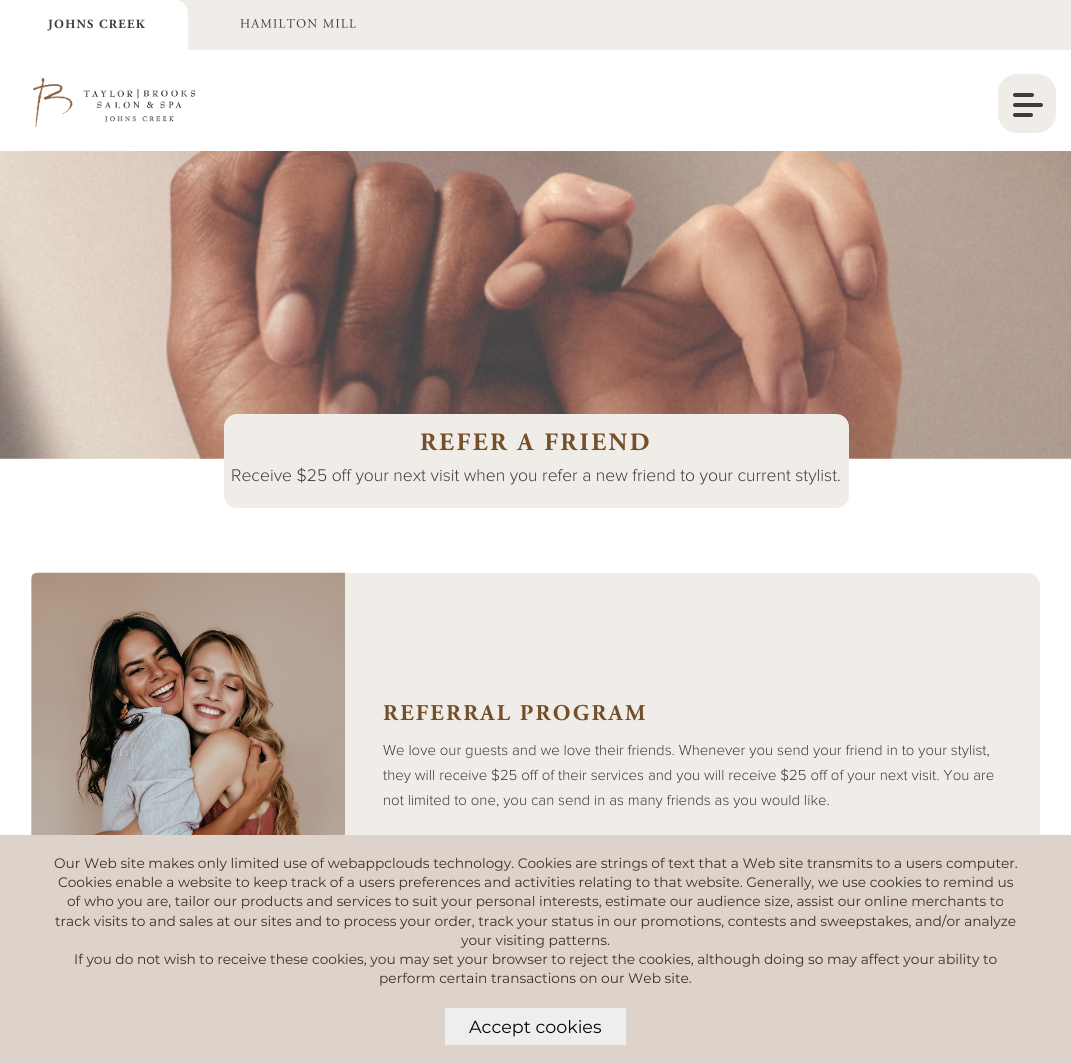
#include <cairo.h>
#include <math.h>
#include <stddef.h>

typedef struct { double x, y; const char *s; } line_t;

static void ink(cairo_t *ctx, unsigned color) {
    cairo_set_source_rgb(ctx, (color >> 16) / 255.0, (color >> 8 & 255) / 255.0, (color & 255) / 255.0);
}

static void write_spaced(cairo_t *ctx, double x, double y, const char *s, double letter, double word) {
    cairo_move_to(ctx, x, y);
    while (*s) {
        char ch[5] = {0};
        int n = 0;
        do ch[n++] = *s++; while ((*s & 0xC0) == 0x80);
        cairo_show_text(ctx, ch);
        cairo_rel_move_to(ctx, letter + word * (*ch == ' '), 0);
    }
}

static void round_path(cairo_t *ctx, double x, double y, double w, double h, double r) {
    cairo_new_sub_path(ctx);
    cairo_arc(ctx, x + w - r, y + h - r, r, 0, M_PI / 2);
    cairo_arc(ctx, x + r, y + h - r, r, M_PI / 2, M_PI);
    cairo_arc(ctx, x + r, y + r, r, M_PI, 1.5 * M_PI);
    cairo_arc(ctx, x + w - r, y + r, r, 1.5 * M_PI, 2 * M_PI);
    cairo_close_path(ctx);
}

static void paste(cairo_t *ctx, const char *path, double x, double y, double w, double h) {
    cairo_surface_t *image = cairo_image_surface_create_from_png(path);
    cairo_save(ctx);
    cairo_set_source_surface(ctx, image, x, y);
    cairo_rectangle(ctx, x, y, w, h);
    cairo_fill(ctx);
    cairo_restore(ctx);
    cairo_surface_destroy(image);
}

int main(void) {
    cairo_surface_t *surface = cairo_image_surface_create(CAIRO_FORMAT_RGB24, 1071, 1063);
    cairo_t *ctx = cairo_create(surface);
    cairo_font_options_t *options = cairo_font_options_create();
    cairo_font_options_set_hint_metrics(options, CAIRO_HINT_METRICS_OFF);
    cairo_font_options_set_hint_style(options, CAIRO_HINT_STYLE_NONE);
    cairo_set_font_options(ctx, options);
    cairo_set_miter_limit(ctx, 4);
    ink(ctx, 0xFFFFFF);
    cairo_paint(ctx);
    ink(ctx, 0xF0EDE9);
    cairo_rectangle(ctx, 175, 0, 896, 50);
    cairo_fill(ctx);
    ink(ctx, 0xFFFFFF);
    cairo_new_path(ctx);
    cairo_move_to(ctx, 0, 0);
    cairo_line_to(ctx, 175, 0);
    cairo_curve_to(ctx, 182, 0, 188, 6, 188, 13);
    cairo_line_to(ctx, 188, 50);
    cairo_line_to(ctx, 0, 50);
    cairo_close_path(ctx);
    cairo_fill(ctx);
    cairo_select_font_face(ctx, "Adobe Garamond", CAIRO_FONT_SLANT_NORMAL, CAIRO_FONT_WEIGHT_BOLD);
    cairo_set_font_size(ctx, 12.5);
    ink(ctx, 0x3C3C3C);
    write_spaced(ctx, 48, 28, "JOHNS CREEK", 1.25, 0);
    paste(ctx, "media/1.png", 240, 18, 116, 10);
    paste(ctx, "media/2.png", 33, 77, 163, 51);
    ink(ctx, 0xF0EDE9);
    round_path(ctx, 998.5, 74.5, 57, 58, 18.5);
    cairo_fill_preserve(ctx);
    cairo_set_line_width(ctx, 1);
    cairo_stroke(ctx);
    ink(ctx, 0x3C3C3C);
    round_path(ctx, 1013, 93, 21, 4, 2);
    cairo_fill(ctx);
    round_path(ctx, 1013, 103, 30, 4, 2);
    cairo_fill(ctx);
    round_path(ctx, 1013, 113, 20, 4, 2);
    cairo_fill(ctx);
    paste(ctx, "media/3.png", 0, 151, 1071, 308);
    ink(ctx, 0xF0EDE9);
    round_path(ctx, 224, 414, 625, 94, 13);
    cairo_fill(ctx);
    cairo_set_font_size(ctx, 25);
    ink(ctx, 0x744F28);
    write_spaced(ctx, 420, 450, "REFER A FRIEND", 2.5, 0);
    cairo_select_font_face(ctx, "Proxima Nova Light", CAIRO_FONT_SLANT_NORMAL, CAIRO_FONT_WEIGHT_NORMAL);
    cairo_set_font_size(ctx, 17.5);
    ink(ctx, 0x3C3C3C);
    cairo_move_to(ctx, 231, 481);
    cairo_show_text(ctx, "Receive $25 off your next visit when you refer a new friend to your current stylist.");
    ink(ctx, 0xF0EDE9);
    cairo_new_path(ctx);
    cairo_move_to(ctx, 37, 573);
    cairo_line_to(ctx, 1027, 573);
    cairo_curve_to(ctx, 1034, 573, 1040, 579, 1040, 586);
    cairo_line_to(ctx, 1040, 962);
    cairo_curve_to(ctx, 1040, 969, 1034, 975, 1027, 975);
    cairo_line_to(ctx, 37, 975);
    cairo_curve_to(ctx, 33.5, 975, 31, 972.5, 31, 969);
    cairo_line_to(ctx, 31, 579);
    cairo_curve_to(ctx, 31, 575.5, 33.5, 573, 37, 573);
    cairo_close_path(ctx);
    cairo_fill(ctx);
    paste(ctx, "media/4.png", 31, 572, 314, 263);
    cairo_select_font_face(ctx, "Adobe Garamond", CAIRO_FONT_SLANT_NORMAL, CAIRO_FONT_WEIGHT_BOLD);
    cairo_set_font_size(ctx, 22.5);
    ink(ctx, 0x744F28);
    write_spaced(ctx, 383, 720, "REFERRAL PROGRAM", 2.25, 0);
    cairo_select_font_face(ctx, "Proxima Nova Light", CAIRO_FONT_SLANT_NORMAL, CAIRO_FONT_WEIGHT_NORMAL);
    cairo_set_font_size(ctx, 15);
    ink(ctx, 0x3C3C3C);
    {
        static const line_t items[] = {
            {383, 755, "We love our guests and we love their friends. Whenever you send your friend in to your stylist,"},
            {383, 780, "they will receive $25 off of their services and you will receive $25 off of your next visit. You are"},
            {383, 805, "not limited to one, you can send in as many friends as you would like."},
        };
        for (size_t i = 0; i < sizeof items / sizeof *items; i++) {
            cairo_move_to(ctx, items[i].x, items[i].y);
            cairo_show_text(ctx, items[i].s);
        }
    }
    ink(ctx, 0xDDD3CA);
    cairo_rectangle(ctx, 0, 835, 1071, 228);
    cairo_fill(ctx);
    cairo_select_font_face(ctx, "Montserrat", CAIRO_FONT_SLANT_NORMAL, CAIRO_FONT_WEIGHT_NORMAL);
    cairo_set_font_size(ctx, 13.75);
    ink(ctx, 0x393323);
    {
        static const line_t items[] = {
            {54, 868, "Our Web site makes only limited use of webappclouds technology. Cookies are strings of text that a Web site transmits to a users computer."},
            {58, 887, "Cookies enable a website to keep track of a users preferences and activities relating to that website. Generally, we use cookies to remind us"},
            {67, 906, "of who you are, tailor our products and services to suit your personal interests, estimate our audience size, assist our online merchants to"},
            {55, 926, "track visits to and sales at our sites and to process your order, track your status in our promotions, contests and sweepstakes, and/or analyze"},
            {461, 945, "your visiting patterns."},
            {74, 964, "If you do not wish to receive these cookies, you may set your browser to reject the cookies, although doing so may affect your ability to"},
            {379, 983, "perform certain transactions on our Web site."},
        };
        for (size_t i = 0; i < sizeof items / sizeof *items; i++) {
            cairo_move_to(ctx, items[i].x, items[i].y);
            cairo_show_text(ctx, items[i].s);
        }
    }
    ink(ctx, 0xEDEEEF);
    cairo_rectangle(ctx, 445, 1008, 181, 37);
    cairo_fill(ctx);
    cairo_set_font_size(ctx, 17.5);
    ink(ctx, 0x040404);
    cairo_move_to(ctx, 469, 1033);
    cairo_show_text(ctx, "Accept cookies");
    cairo_surface_write_to_png(surface, "image.png");
    cairo_font_options_destroy(options);
    cairo_destroy(ctx);
    cairo_surface_destroy(surface);
    return 0;
}
